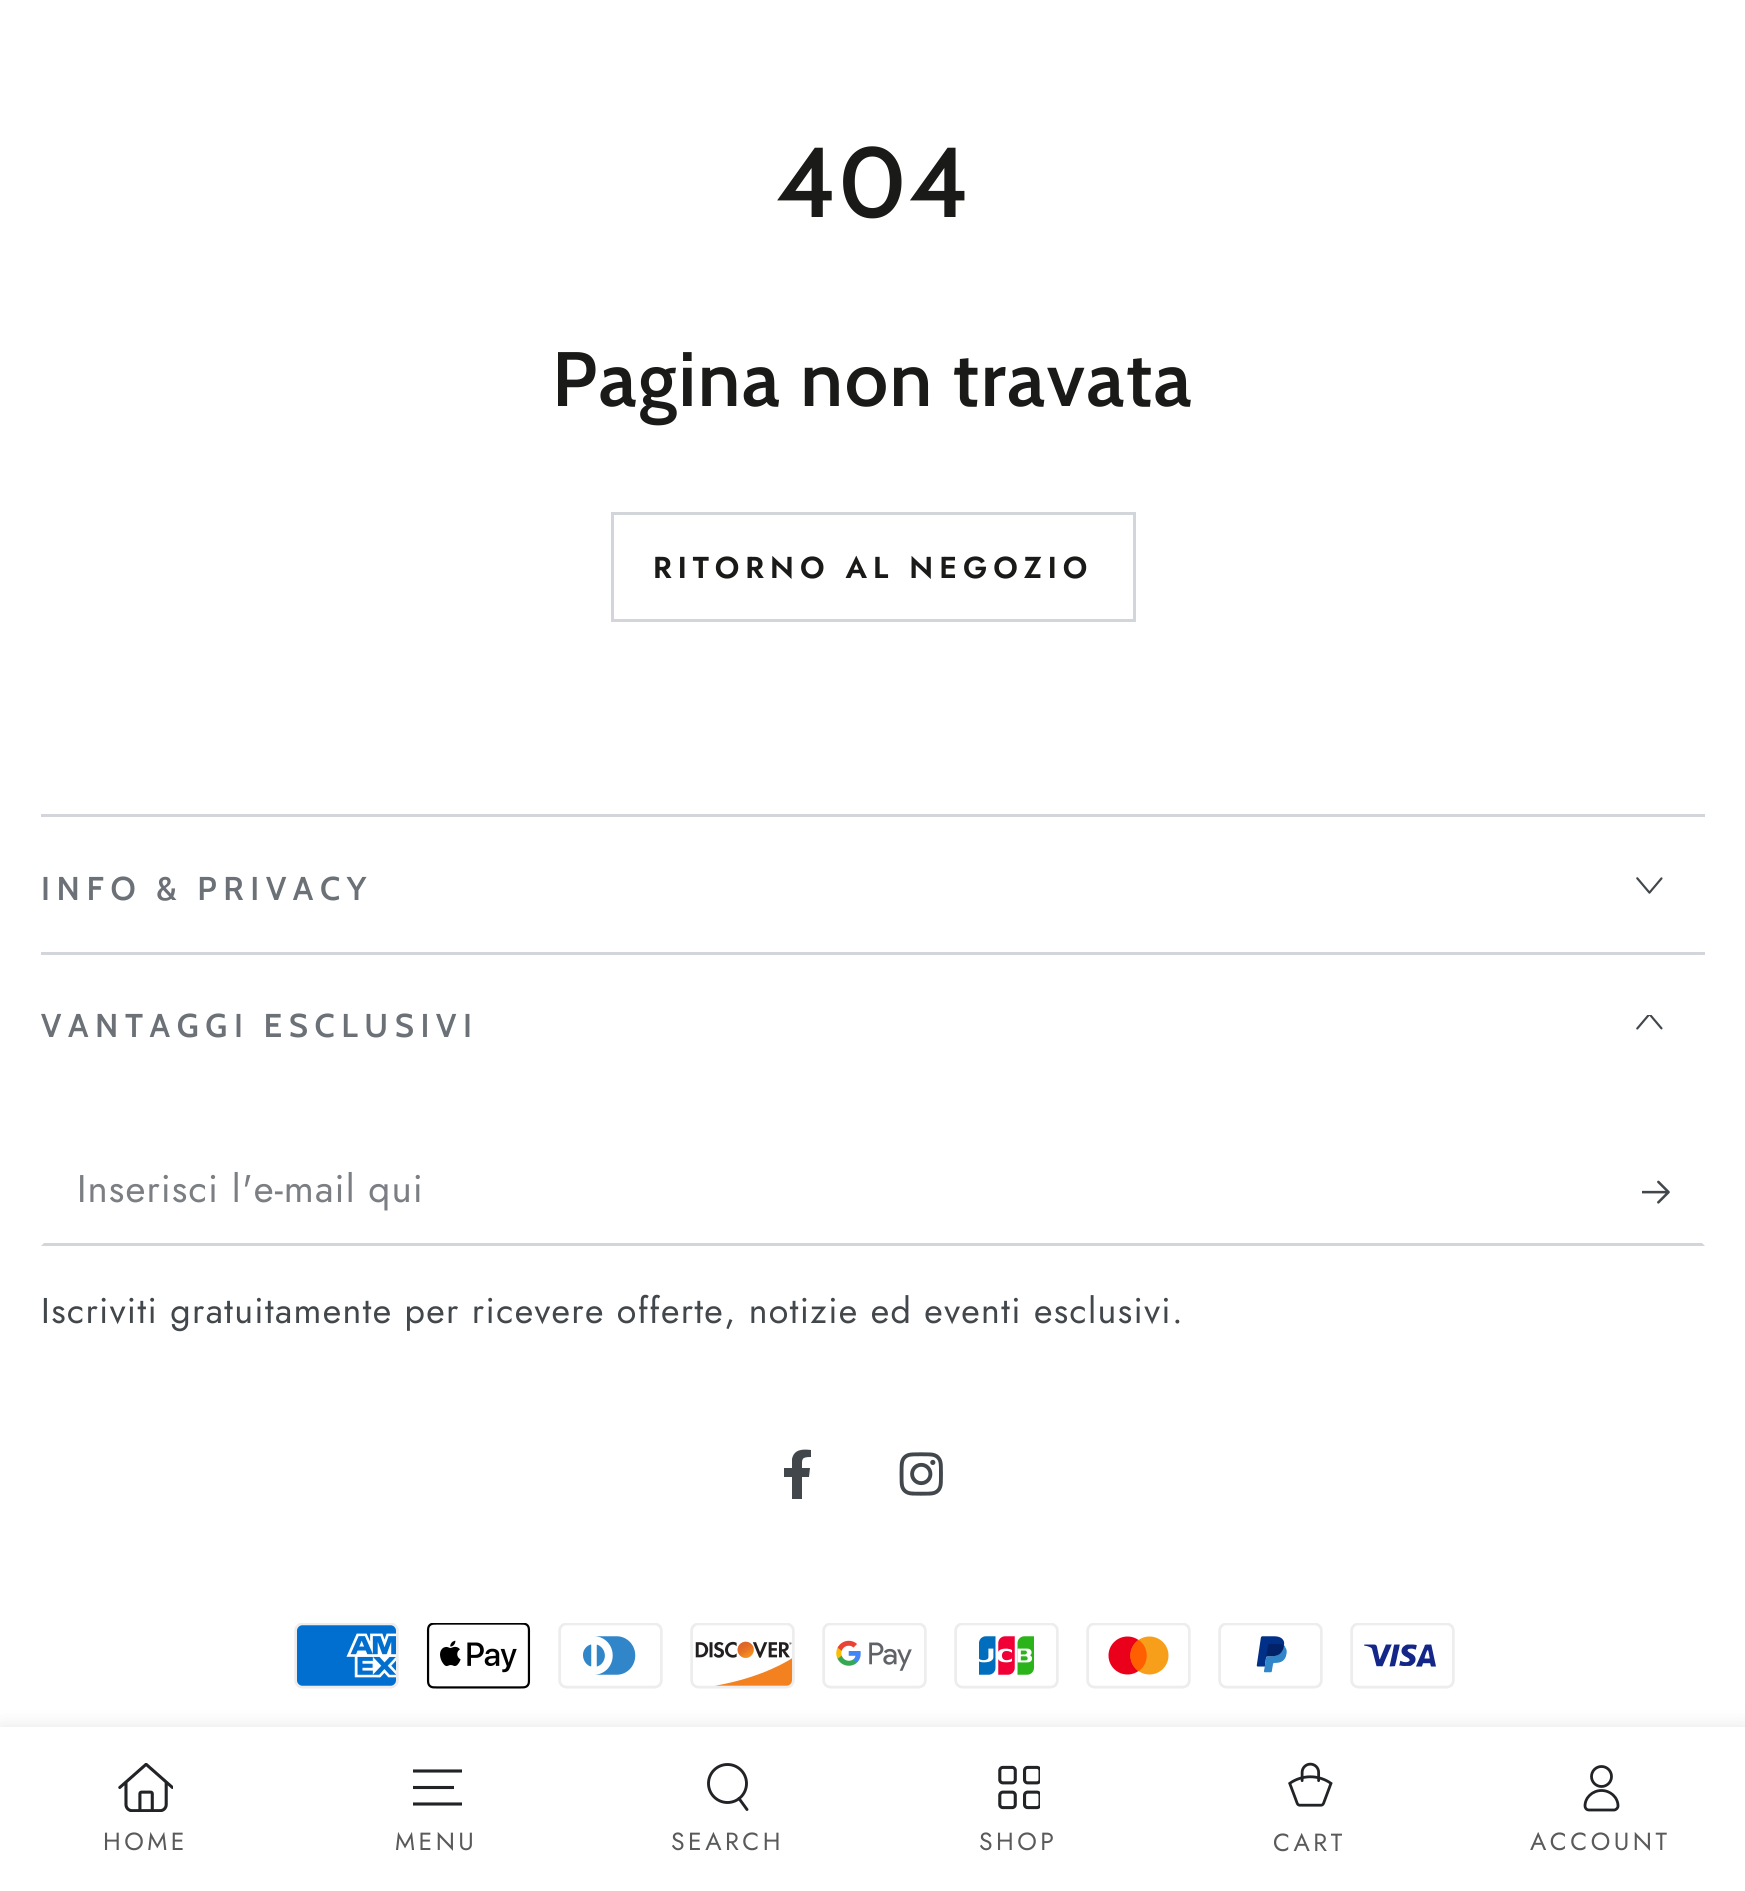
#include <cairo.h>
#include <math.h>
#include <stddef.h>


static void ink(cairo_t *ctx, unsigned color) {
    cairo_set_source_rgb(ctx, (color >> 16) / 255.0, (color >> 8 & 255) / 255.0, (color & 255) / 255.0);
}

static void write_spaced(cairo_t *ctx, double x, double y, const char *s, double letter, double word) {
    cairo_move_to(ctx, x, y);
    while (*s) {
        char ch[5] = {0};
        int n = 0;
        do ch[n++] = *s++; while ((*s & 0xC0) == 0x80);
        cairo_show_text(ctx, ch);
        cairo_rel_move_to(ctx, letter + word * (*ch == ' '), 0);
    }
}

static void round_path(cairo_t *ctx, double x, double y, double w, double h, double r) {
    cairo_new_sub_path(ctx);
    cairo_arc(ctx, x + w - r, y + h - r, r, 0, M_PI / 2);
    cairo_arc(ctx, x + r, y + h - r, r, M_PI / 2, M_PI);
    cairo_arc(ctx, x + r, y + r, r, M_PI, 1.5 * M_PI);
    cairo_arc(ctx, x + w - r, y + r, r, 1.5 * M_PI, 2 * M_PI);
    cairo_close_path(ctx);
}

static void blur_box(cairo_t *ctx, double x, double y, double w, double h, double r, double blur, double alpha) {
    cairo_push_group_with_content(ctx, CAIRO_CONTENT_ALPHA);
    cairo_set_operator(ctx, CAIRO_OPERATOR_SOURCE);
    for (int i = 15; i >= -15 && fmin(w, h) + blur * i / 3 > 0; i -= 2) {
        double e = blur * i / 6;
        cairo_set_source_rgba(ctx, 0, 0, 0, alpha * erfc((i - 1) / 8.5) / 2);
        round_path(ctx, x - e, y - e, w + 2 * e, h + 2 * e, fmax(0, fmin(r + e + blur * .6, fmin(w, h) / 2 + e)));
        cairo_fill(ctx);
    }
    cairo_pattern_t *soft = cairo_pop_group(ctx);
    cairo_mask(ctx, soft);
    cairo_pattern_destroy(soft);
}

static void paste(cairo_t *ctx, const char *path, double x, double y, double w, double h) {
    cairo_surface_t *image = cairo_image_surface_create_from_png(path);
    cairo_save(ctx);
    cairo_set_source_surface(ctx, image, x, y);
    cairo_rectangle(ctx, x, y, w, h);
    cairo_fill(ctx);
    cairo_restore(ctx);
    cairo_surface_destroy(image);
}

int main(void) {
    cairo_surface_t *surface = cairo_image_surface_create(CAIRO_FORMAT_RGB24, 1745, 1891);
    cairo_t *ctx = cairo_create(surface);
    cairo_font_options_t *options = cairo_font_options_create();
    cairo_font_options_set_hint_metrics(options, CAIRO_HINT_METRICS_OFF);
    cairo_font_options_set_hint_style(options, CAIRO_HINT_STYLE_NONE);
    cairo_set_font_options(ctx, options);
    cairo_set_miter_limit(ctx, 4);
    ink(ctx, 0xFFFFFF);
    cairo_paint(ctx);
    cairo_select_font_face(ctx, "Cabin SemiBold", CAIRO_FONT_SLANT_NORMAL, CAIRO_FONT_WEIGHT_NORMAL);
    cairo_set_font_size(ctx, 99);
    ink(ctx, 0x1A1B18);
    write_spaced(ctx, 776, 217, "404", 1.6, 0);
    cairo_set_font_size(ctx, 77);
    write_spaced(ctx, 552, 406, "Pagina non travata", 1.6, 0);
    cairo_rectangle(ctx, 612.5, 513.5, 522, 107);
    ink(ctx, 0xD2D5D9);
    cairo_set_line_width(ctx, 3);
    cairo_stroke(ctx);
    cairo_select_font_face(ctx, "Jost SemiBold", CAIRO_FONT_SLANT_NORMAL, CAIRO_FONT_WEIGHT_NORMAL);
    cairo_set_font_size(ctx, 30.25);
    ink(ctx, 0x1A1B18);
    write_spaced(ctx, 653, 578, "RITORNO AL NEGOZIO", 6, 0);
    ink(ctx, 0xD2D5D9);
    cairo_rectangle(ctx, 41, 814, 1664, 3);
    cairo_fill(ctx);
    cairo_rectangle(ctx, 41, 952, 1664, 3);
    cairo_fill(ctx);
    cairo_select_font_face(ctx, "Cabin SemiBold", CAIRO_FONT_SLANT_NORMAL, CAIRO_FONT_WEIGHT_NORMAL);
    cairo_set_font_size(ctx, 33);
    ink(ctx, 0x6B7177);
    write_spaced(ctx, 41, 900, "INFO & PRIVACY", 6.6, 0);
    paste(ctx, "media/1.png", 1636, 877, 27, 17);
    write_spaced(ctx, 41, 1037, "VANTAGGI ESCLUSIVI", 6.6, 0);
    paste(ctx, "media/2.png", 1636, 1015, 27, 15);
    ink(ctx, 0xD2D5D9);
    cairo_new_path(ctx);
    cairo_move_to(ctx, 1705, 1246);
    cairo_line_to(ctx, 41, 1246);
    cairo_line_to(ctx, 44, 1243);
    cairo_line_to(ctx, 1702, 1243);
    cairo_close_path(ctx);
    cairo_fill(ctx);
    cairo_select_font_face(ctx, "Jost", CAIRO_FONT_SLANT_NORMAL, CAIRO_FONT_WEIGHT_NORMAL);
    cairo_set_font_size(ctx, 38.5);
    ink(ctx, 0x7B7E82);
    write_spaced(ctx, 77, 1202, "Inserisci l'e-mail qui", 1.1, 0);
    paste(ctx, "media/3.png", 1642, 1180, 28, 24);
    cairo_set_font_size(ctx, 35.75);
    ink(ctx, 0x42474C);
    write_spaced(ctx, 41, 1323, "Iscriviti gratuitamente per ricevere offerte, notizie ed eventi esclusivi.", 1.38, 0);
    cairo_new_path(ctx);
    cairo_move_to(ctx, 809, 1477);
    cairo_line_to(ctx, 810, 1468);
    cairo_line_to(ctx, 802, 1468);
    cairo_curve_to(ctx, 802, 1459, 801, 1457, 811, 1457);
    cairo_line_to(ctx, 811, 1450);
    cairo_curve_to(ctx, 803, 1449, 794, 1449, 792, 1459);
    cairo_line_to(ctx, 792, 1468);
    cairo_line_to(ctx, 784, 1468);
    cairo_line_to(ctx, 784, 1477);
    cairo_line_to(ctx, 792, 1477);
    cairo_line_to(ctx, 792, 1499);
    cairo_line_to(ctx, 802, 1499);
    cairo_line_to(ctx, 802, 1477);
    cairo_close_path(ctx);
    cairo_fill(ctx);
    paste(ctx, "media/4.png", 899, 1452, 44, 44);
    paste(ctx, "media/5.png", 294, 1623, 105, 66);
    paste(ctx, "media/6.png", 426, 1623, 105, 66);
    paste(ctx, "media/7.png", 558, 1623, 105, 66);
    paste(ctx, "media/8.png", 690, 1623, 105, 66);
    paste(ctx, "media/9.png", 822, 1623, 105, 66);
    paste(ctx, "media/10.png", 954, 1623, 105, 66);
    paste(ctx, "media/11.png", 1086, 1623, 105, 66);
    paste(ctx, "media/12.png", 1218, 1623, 105, 66);
    paste(ctx, "media/13.png", 1350, 1623, 105, 66);
    ink(ctx, 0x212326);
    blur_box(ctx, 0, 1730, 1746, 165, 0, 11, 0.15);
    ink(ctx, 0xFFFFFF);
    cairo_rectangle(ctx, 0, 1727, 1745, 164);
    cairo_fill(ctx);
    paste(ctx, "media/14.png", 118, 1763, 55, 49);
    cairo_set_font_size(ctx, 24.75);
    ink(ctx, 0x595A5C);
    write_spaced(ctx, 103, 1850, "HOME", 3.5, 0);
    cairo_save(ctx);
    cairo_rectangle(ctx, 413, 1763, 49, 49);
    cairo_clip(ctx);
    cairo_new_path(ctx);
    cairo_move_to(ctx, 412.5, 1804);
    cairo_line_to(ctx, 462, 1804);
    cairo_move_to(ctx, 412.5, 1787.5);
    cairo_line_to(ctx, 454, 1787.5);
    cairo_move_to(ctx, 412.5, 1771);
    cairo_line_to(ctx, 462, 1771);
    ink(ctx, 0x212326);
    cairo_set_line_width(ctx, 3.1);
    cairo_stroke(ctx);
    cairo_restore(ctx);
    write_spaced(ctx, 395, 1850, "MENU", 3.5, 0);
    cairo_new_path(ctx);
    cairo_arc(ctx, 727.5, 1783.5, 19, 0, 2 * M_PI);
    ink(ctx, 0x212326);
    cairo_set_line_width(ctx, 2.9);
    cairo_stroke(ctx);
    cairo_new_path(ctx);
    cairo_move_to(ctx, 739, 1798.5);
    cairo_line_to(ctx, 747, 1809.5);
    cairo_set_line_cap(ctx, CAIRO_LINE_CAP_ROUND);
    cairo_stroke(ctx);
    ink(ctx, 0x595A5C);
    write_spaced(ctx, 671, 1850, "SEARCH", 3.5, 0);
    paste(ctx, "media/15.png", 998, 1765, 42, 45);
    write_spaced(ctx, 979, 1850, "SHOP", 3.5, 0);
    paste(ctx, "media/16.png", 1288, 1762, 45, 45);
    write_spaced(ctx, 1273, 1851, "CART", 3.5, 0);
    cairo_new_path(ctx);
    cairo_move_to(ctx, 1601.5, 1790.5);
    cairo_curve_to(ctx, 1592.5, 1790.5, 1585, 1797.5, 1585, 1806);
    cairo_curve_to(ctx, 1585, 1808, 1586.5, 1810, 1589, 1810);
    cairo_line_to(ctx, 1614, 1810);
    cairo_curve_to(ctx, 1616, 1810, 1618, 1808, 1618, 1806);
    cairo_curve_to(ctx, 1618, 1797.5, 1610.5, 1790.5, 1601.5, 1790.5);
    cairo_close_path(ctx);
    ink(ctx, 0x212326);
    cairo_set_line_width(ctx, 2.8);
    cairo_set_line_cap(ctx, CAIRO_LINE_CAP_BUTT);
    cairo_stroke(ctx);
    cairo_arc(ctx, 1601.5, 1776.5, 10, 0, 2 * M_PI);
    cairo_stroke(ctx);
    ink(ctx, 0x595A5C);
    write_spaced(ctx, 1530, 1850, "ACCOUNT", 3.5, 0);
    cairo_surface_write_to_png(surface, "image.png");
    cairo_font_options_destroy(options);
    cairo_destroy(ctx);
    cairo_surface_destroy(surface);
    return 0;
}
